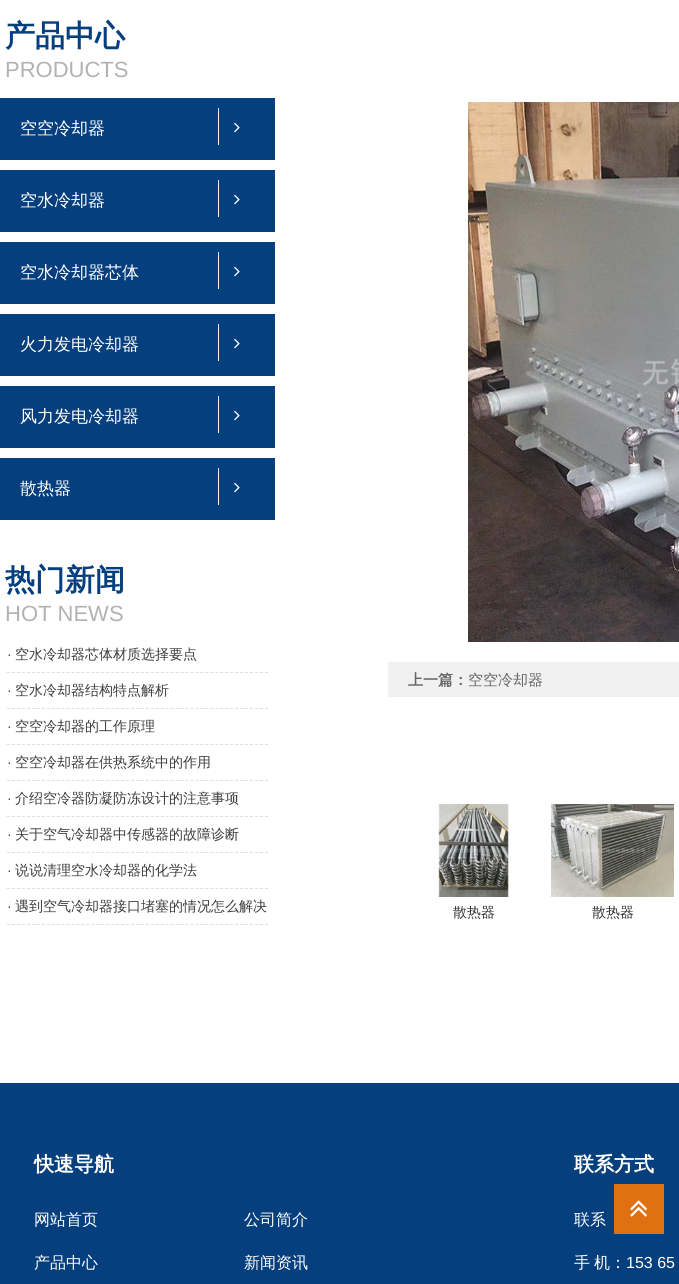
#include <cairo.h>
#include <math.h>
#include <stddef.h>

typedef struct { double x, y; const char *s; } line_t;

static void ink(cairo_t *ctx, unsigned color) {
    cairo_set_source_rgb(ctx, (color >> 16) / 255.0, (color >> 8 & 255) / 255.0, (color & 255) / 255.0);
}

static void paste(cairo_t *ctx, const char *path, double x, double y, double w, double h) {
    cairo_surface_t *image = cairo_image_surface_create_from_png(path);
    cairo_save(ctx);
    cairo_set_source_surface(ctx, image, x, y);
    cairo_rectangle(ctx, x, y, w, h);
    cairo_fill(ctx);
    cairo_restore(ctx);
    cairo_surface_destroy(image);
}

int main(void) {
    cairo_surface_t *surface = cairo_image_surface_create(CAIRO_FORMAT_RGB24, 679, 1284);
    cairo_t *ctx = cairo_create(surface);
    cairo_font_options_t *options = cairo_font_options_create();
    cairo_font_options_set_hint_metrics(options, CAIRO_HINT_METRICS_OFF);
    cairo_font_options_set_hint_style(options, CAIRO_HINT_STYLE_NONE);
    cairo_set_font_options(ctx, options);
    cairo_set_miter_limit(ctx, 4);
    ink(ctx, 0xFFFFFF);
    cairo_paint(ctx);
    cairo_select_font_face(ctx, "WenQuanYi Zen Hei", CAIRO_FONT_SLANT_NORMAL, CAIRO_FONT_WEIGHT_BOLD);
    cairo_set_font_size(ctx, 30);
    ink(ctx, 0x063F7E);
    cairo_move_to(ctx, 5, 46);
    cairo_show_text(ctx, "产品中心");
    cairo_select_font_face(ctx, "Liberation Sans", CAIRO_FONT_SLANT_NORMAL, CAIRO_FONT_WEIGHT_NORMAL);
    cairo_set_font_size(ctx, 22);
    ink(ctx, 0xB2B2B2);
    cairo_move_to(ctx, 5, 77);
    cairo_show_text(ctx, "PRODUCTS");
    ink(ctx, 0x063F7E);
    cairo_rectangle(ctx, 0, 98, 275, 62);
    cairo_fill(ctx);
    cairo_select_font_face(ctx, "WenQuanYi Zen Hei Medium", CAIRO_FONT_SLANT_NORMAL, CAIRO_FONT_WEIGHT_NORMAL);
    cairo_set_font_size(ctx, 17);
    ink(ctx, 0xFFFFFF);
    cairo_move_to(ctx, 20, 134);
    cairo_show_text(ctx, "空空冷却器");
    ink(ctx, 0xF1F1F1);
    cairo_rectangle(ctx, 218, 108, 1, 37);
    cairo_fill(ctx);
    paste(ctx, "media/1.png", 234, 122, 6, 11);
    ink(ctx, 0x063F7E);
    cairo_rectangle(ctx, 0, 170, 275, 62);
    cairo_fill(ctx);
    ink(ctx, 0xFFFFFF);
    cairo_move_to(ctx, 20, 206);
    cairo_show_text(ctx, "空水冷却器");
    ink(ctx, 0xF1F1F1);
    cairo_rectangle(ctx, 218, 180, 1, 37);
    cairo_fill(ctx);
    paste(ctx, "media/1.png", 234, 194, 6, 11);
    ink(ctx, 0x063F7E);
    cairo_rectangle(ctx, 0, 242, 275, 62);
    cairo_fill(ctx);
    ink(ctx, 0xFFFFFF);
    cairo_move_to(ctx, 20, 278);
    cairo_show_text(ctx, "空水冷却器芯体");
    ink(ctx, 0xF1F1F1);
    cairo_rectangle(ctx, 218, 252, 1, 37);
    cairo_fill(ctx);
    paste(ctx, "media/1.png", 234, 266, 6, 11);
    ink(ctx, 0x063F7E);
    cairo_rectangle(ctx, 0, 314, 275, 62);
    cairo_fill(ctx);
    ink(ctx, 0xFFFFFF);
    cairo_move_to(ctx, 20, 350);
    cairo_show_text(ctx, "火力发电冷却器");
    ink(ctx, 0xF1F1F1);
    cairo_rectangle(ctx, 218, 324, 1, 37);
    cairo_fill(ctx);
    paste(ctx, "media/1.png", 234, 338, 6, 11);
    ink(ctx, 0x063F7E);
    cairo_rectangle(ctx, 0, 386, 275, 62);
    cairo_fill(ctx);
    ink(ctx, 0xFFFFFF);
    cairo_move_to(ctx, 20, 422);
    cairo_show_text(ctx, "风力发电冷却器");
    ink(ctx, 0xF1F1F1);
    cairo_rectangle(ctx, 218, 396, 1, 37);
    cairo_fill(ctx);
    paste(ctx, "media/1.png", 234, 410, 6, 11);
    ink(ctx, 0x063F7E);
    cairo_rectangle(ctx, 0, 458, 275, 62);
    cairo_fill(ctx);
    ink(ctx, 0xFFFFFF);
    cairo_move_to(ctx, 20, 494);
    cairo_show_text(ctx, "散热器");
    ink(ctx, 0xF1F1F1);
    cairo_rectangle(ctx, 218, 468, 1, 37);
    cairo_fill(ctx);
    paste(ctx, "media/1.png", 234, 482, 6, 11);
    cairo_select_font_face(ctx, "WenQuanYi Zen Hei", CAIRO_FONT_SLANT_NORMAL, CAIRO_FONT_WEIGHT_BOLD);
    cairo_set_font_size(ctx, 30);
    ink(ctx, 0x063F7E);
    cairo_move_to(ctx, 5, 590);
    cairo_show_text(ctx, "热门新闻");
    cairo_select_font_face(ctx, "Liberation Sans", CAIRO_FONT_SLANT_NORMAL, CAIRO_FONT_WEIGHT_NORMAL);
    cairo_set_font_size(ctx, 22);
    ink(ctx, 0xB2B2B2);
    cairo_move_to(ctx, 5, 621);
    cairo_show_text(ctx, "HOT NEWS");
    cairo_new_path(ctx);
    cairo_move_to(ctx, 7, 672.5);
    cairo_line_to(ctx, 268, 672.5);
    ink(ctx, 0xDEDEDE);
    cairo_set_line_width(ctx, 1);
    cairo_set_dash(ctx, (double[]){3, 1.96}, 2, 0);
    cairo_stroke(ctx);
    cairo_set_font_size(ctx, 14);
    ink(ctx, 0x3D3D3D);
    cairo_move_to(ctx, 7, 659);
    cairo_show_text(ctx, "·");
    cairo_select_font_face(ctx, "WenQuanYi Zen Hei Medium", CAIRO_FONT_SLANT_NORMAL, CAIRO_FONT_WEIGHT_NORMAL);
    cairo_move_to(ctx, 15, 659);
    cairo_show_text(ctx, "空水冷却器芯体材质选择要点");
    cairo_new_path(ctx);
    cairo_move_to(ctx, 7, 708.5);
    cairo_line_to(ctx, 268, 708.5);
    ink(ctx, 0xDEDEDE);
    cairo_stroke(ctx);
    cairo_select_font_face(ctx, "Liberation Sans", CAIRO_FONT_SLANT_NORMAL, CAIRO_FONT_WEIGHT_NORMAL);
    ink(ctx, 0x3D3D3D);
    cairo_move_to(ctx, 7, 695);
    cairo_show_text(ctx, "·");
    cairo_select_font_face(ctx, "WenQuanYi Zen Hei Medium", CAIRO_FONT_SLANT_NORMAL, CAIRO_FONT_WEIGHT_NORMAL);
    cairo_move_to(ctx, 15, 695);
    cairo_show_text(ctx, "空水冷却器结构特点解析");
    cairo_new_path(ctx);
    cairo_move_to(ctx, 7, 744.5);
    cairo_line_to(ctx, 268, 744.5);
    ink(ctx, 0xDEDEDE);
    cairo_stroke(ctx);
    cairo_select_font_face(ctx, "Liberation Sans", CAIRO_FONT_SLANT_NORMAL, CAIRO_FONT_WEIGHT_NORMAL);
    ink(ctx, 0x3D3D3D);
    cairo_move_to(ctx, 7, 731);
    cairo_show_text(ctx, "·");
    cairo_select_font_face(ctx, "WenQuanYi Zen Hei Medium", CAIRO_FONT_SLANT_NORMAL, CAIRO_FONT_WEIGHT_NORMAL);
    cairo_move_to(ctx, 15, 731);
    cairo_show_text(ctx, "空空冷却器的工作原理");
    cairo_new_path(ctx);
    cairo_move_to(ctx, 7, 780.5);
    cairo_line_to(ctx, 268, 780.5);
    ink(ctx, 0xDEDEDE);
    cairo_stroke(ctx);
    cairo_select_font_face(ctx, "Liberation Sans", CAIRO_FONT_SLANT_NORMAL, CAIRO_FONT_WEIGHT_NORMAL);
    ink(ctx, 0x3D3D3D);
    cairo_move_to(ctx, 7, 767);
    cairo_show_text(ctx, "·");
    cairo_select_font_face(ctx, "WenQuanYi Zen Hei Medium", CAIRO_FONT_SLANT_NORMAL, CAIRO_FONT_WEIGHT_NORMAL);
    cairo_move_to(ctx, 15, 767);
    cairo_show_text(ctx, "空空冷却器在供热系统中的作用");
    cairo_new_path(ctx);
    cairo_move_to(ctx, 7, 816.5);
    cairo_line_to(ctx, 268, 816.5);
    ink(ctx, 0xDEDEDE);
    cairo_stroke(ctx);
    cairo_select_font_face(ctx, "Liberation Sans", CAIRO_FONT_SLANT_NORMAL, CAIRO_FONT_WEIGHT_NORMAL);
    ink(ctx, 0x3D3D3D);
    cairo_move_to(ctx, 7, 803);
    cairo_show_text(ctx, "·");
    cairo_select_font_face(ctx, "WenQuanYi Zen Hei Medium", CAIRO_FONT_SLANT_NORMAL, CAIRO_FONT_WEIGHT_NORMAL);
    cairo_move_to(ctx, 15, 803);
    cairo_show_text(ctx, "介绍空冷器防凝防冻设计的注意事项");
    cairo_new_path(ctx);
    cairo_move_to(ctx, 7, 852.5);
    cairo_line_to(ctx, 268, 852.5);
    ink(ctx, 0xDEDEDE);
    cairo_stroke(ctx);
    cairo_select_font_face(ctx, "Liberation Sans", CAIRO_FONT_SLANT_NORMAL, CAIRO_FONT_WEIGHT_NORMAL);
    ink(ctx, 0x3D3D3D);
    cairo_move_to(ctx, 7, 839);
    cairo_show_text(ctx, "·");
    cairo_select_font_face(ctx, "WenQuanYi Zen Hei Medium", CAIRO_FONT_SLANT_NORMAL, CAIRO_FONT_WEIGHT_NORMAL);
    cairo_move_to(ctx, 15, 839);
    cairo_show_text(ctx, "关于空气冷却器中传感器的故障诊断");
    cairo_new_path(ctx);
    cairo_move_to(ctx, 7, 888.5);
    cairo_line_to(ctx, 268, 888.5);
    ink(ctx, 0xDEDEDE);
    cairo_stroke(ctx);
    cairo_select_font_face(ctx, "Liberation Sans", CAIRO_FONT_SLANT_NORMAL, CAIRO_FONT_WEIGHT_NORMAL);
    ink(ctx, 0x3D3D3D);
    cairo_move_to(ctx, 7, 875);
    cairo_show_text(ctx, "·");
    cairo_select_font_face(ctx, "WenQuanYi Zen Hei Medium", CAIRO_FONT_SLANT_NORMAL, CAIRO_FONT_WEIGHT_NORMAL);
    cairo_move_to(ctx, 15, 875);
    cairo_show_text(ctx, "说说清理空水冷却器的化学法");
    cairo_new_path(ctx);
    cairo_move_to(ctx, 7, 924.5);
    cairo_line_to(ctx, 268, 924.5);
    ink(ctx, 0xDEDEDE);
    cairo_stroke(ctx);
    cairo_select_font_face(ctx, "Liberation Sans", CAIRO_FONT_SLANT_NORMAL, CAIRO_FONT_WEIGHT_NORMAL);
    ink(ctx, 0x3D3D3D);
    cairo_move_to(ctx, 7, 911);
    cairo_show_text(ctx, "·");
    cairo_select_font_face(ctx, "WenQuanYi Zen Hei Medium", CAIRO_FONT_SLANT_NORMAL, CAIRO_FONT_WEIGHT_NORMAL);
    cairo_move_to(ctx, 15, 911);
    cairo_show_text(ctx, "遇到空气冷却器接口堵塞的情况怎么解决");
    paste(ctx, "media/2.png", 468, 102, 211, 540);
    ink(ctx, 0xF1F1F1);
    cairo_rectangle(ctx, 388, 662, 291, 35);
    cairo_fill(ctx);
    cairo_select_font_face(ctx, "WenQuanYi Zen Hei", CAIRO_FONT_SLANT_NORMAL, CAIRO_FONT_WEIGHT_BOLD);
    cairo_set_font_size(ctx, 15);
    ink(ctx, 0x666666);
    cairo_move_to(ctx, 408, 685);
    cairo_show_text(ctx, "上一篇：");
    cairo_select_font_face(ctx, "WenQuanYi Zen Hei Medium", CAIRO_FONT_SLANT_NORMAL, CAIRO_FONT_WEIGHT_NORMAL);
    cairo_move_to(ctx, 468, 685);
    cairo_show_text(ctx, "空空冷却器");
    paste(ctx, "media/3.png", 438, 804, 71, 93);
    cairo_set_font_size(ctx, 14);
    ink(ctx, 0x333333);
    cairo_move_to(ctx, 453, 917);
    cairo_show_text(ctx, "散热器");
    paste(ctx, "media/4.png", 551, 804, 123, 93);
    cairo_move_to(ctx, 592, 917);
    cairo_show_text(ctx, "散热器");
    ink(ctx, 0x063F7E);
    cairo_rectangle(ctx, 0, 1083, 679, 201);
    cairo_fill(ctx);
    cairo_select_font_face(ctx, "WenQuanYi Zen Hei", CAIRO_FONT_SLANT_NORMAL, CAIRO_FONT_WEIGHT_BOLD);
    cairo_set_font_size(ctx, 20);
    ink(ctx, 0xFFFFFF);
    cairo_move_to(ctx, 34, 1171);
    cairo_show_text(ctx, "快速导航");
    cairo_select_font_face(ctx, "WenQuanYi Zen Hei Medium", CAIRO_FONT_SLANT_NORMAL, CAIRO_FONT_WEIGHT_NORMAL);
    cairo_set_font_size(ctx, 16);
    {
        static const line_t items[] = {
            {34, 1225, "网站首页"},
            {244, 1225, "公司简介"},
            {34, 1268, "产品中心"},
            {244, 1268, "新闻资讯"},
        };
        for (size_t i = 0; i < sizeof items / sizeof *items; i++) {
            cairo_move_to(ctx, items[i].x, items[i].y);
            cairo_show_text(ctx, items[i].s);
        }
    }
    cairo_select_font_face(ctx, "WenQuanYi Zen Hei", CAIRO_FONT_SLANT_NORMAL, CAIRO_FONT_WEIGHT_BOLD);
    cairo_set_font_size(ctx, 20);
    cairo_move_to(ctx, 574, 1171);
    cairo_show_text(ctx, "联系方式");
    cairo_select_font_face(ctx, "WenQuanYi Zen Hei Medium", CAIRO_FONT_SLANT_NORMAL, CAIRO_FONT_WEIGHT_NORMAL);
    cairo_set_font_size(ctx, 16);
    {
        static const line_t items[] = {
            {574, 1225, "联系"},
            {574, 1268, "手"},
            {594, 1268, "机："},
        };
        for (size_t i = 0; i < sizeof items / sizeof *items; i++) {
            cairo_move_to(ctx, items[i].x, items[i].y);
            cairo_show_text(ctx, items[i].s);
        }
    }
    cairo_select_font_face(ctx, "Liberation Sans", CAIRO_FONT_SLANT_NORMAL, CAIRO_FONT_WEIGHT_NORMAL);
    cairo_move_to(ctx, 626, 1268);
    cairo_show_text(ctx, "153 65");
    ink(ctx, 0xE17012);
    cairo_rectangle(ctx, 614, 1184, 50, 50);
    cairo_fill(ctx);
    paste(ctx, "media/5.png", 630, 1200, 17, 17);
    cairo_surface_write_to_png(surface, "image.png");
    cairo_font_options_destroy(options);
    cairo_destroy(ctx);
    cairo_surface_destroy(surface);
    return 0;
}
